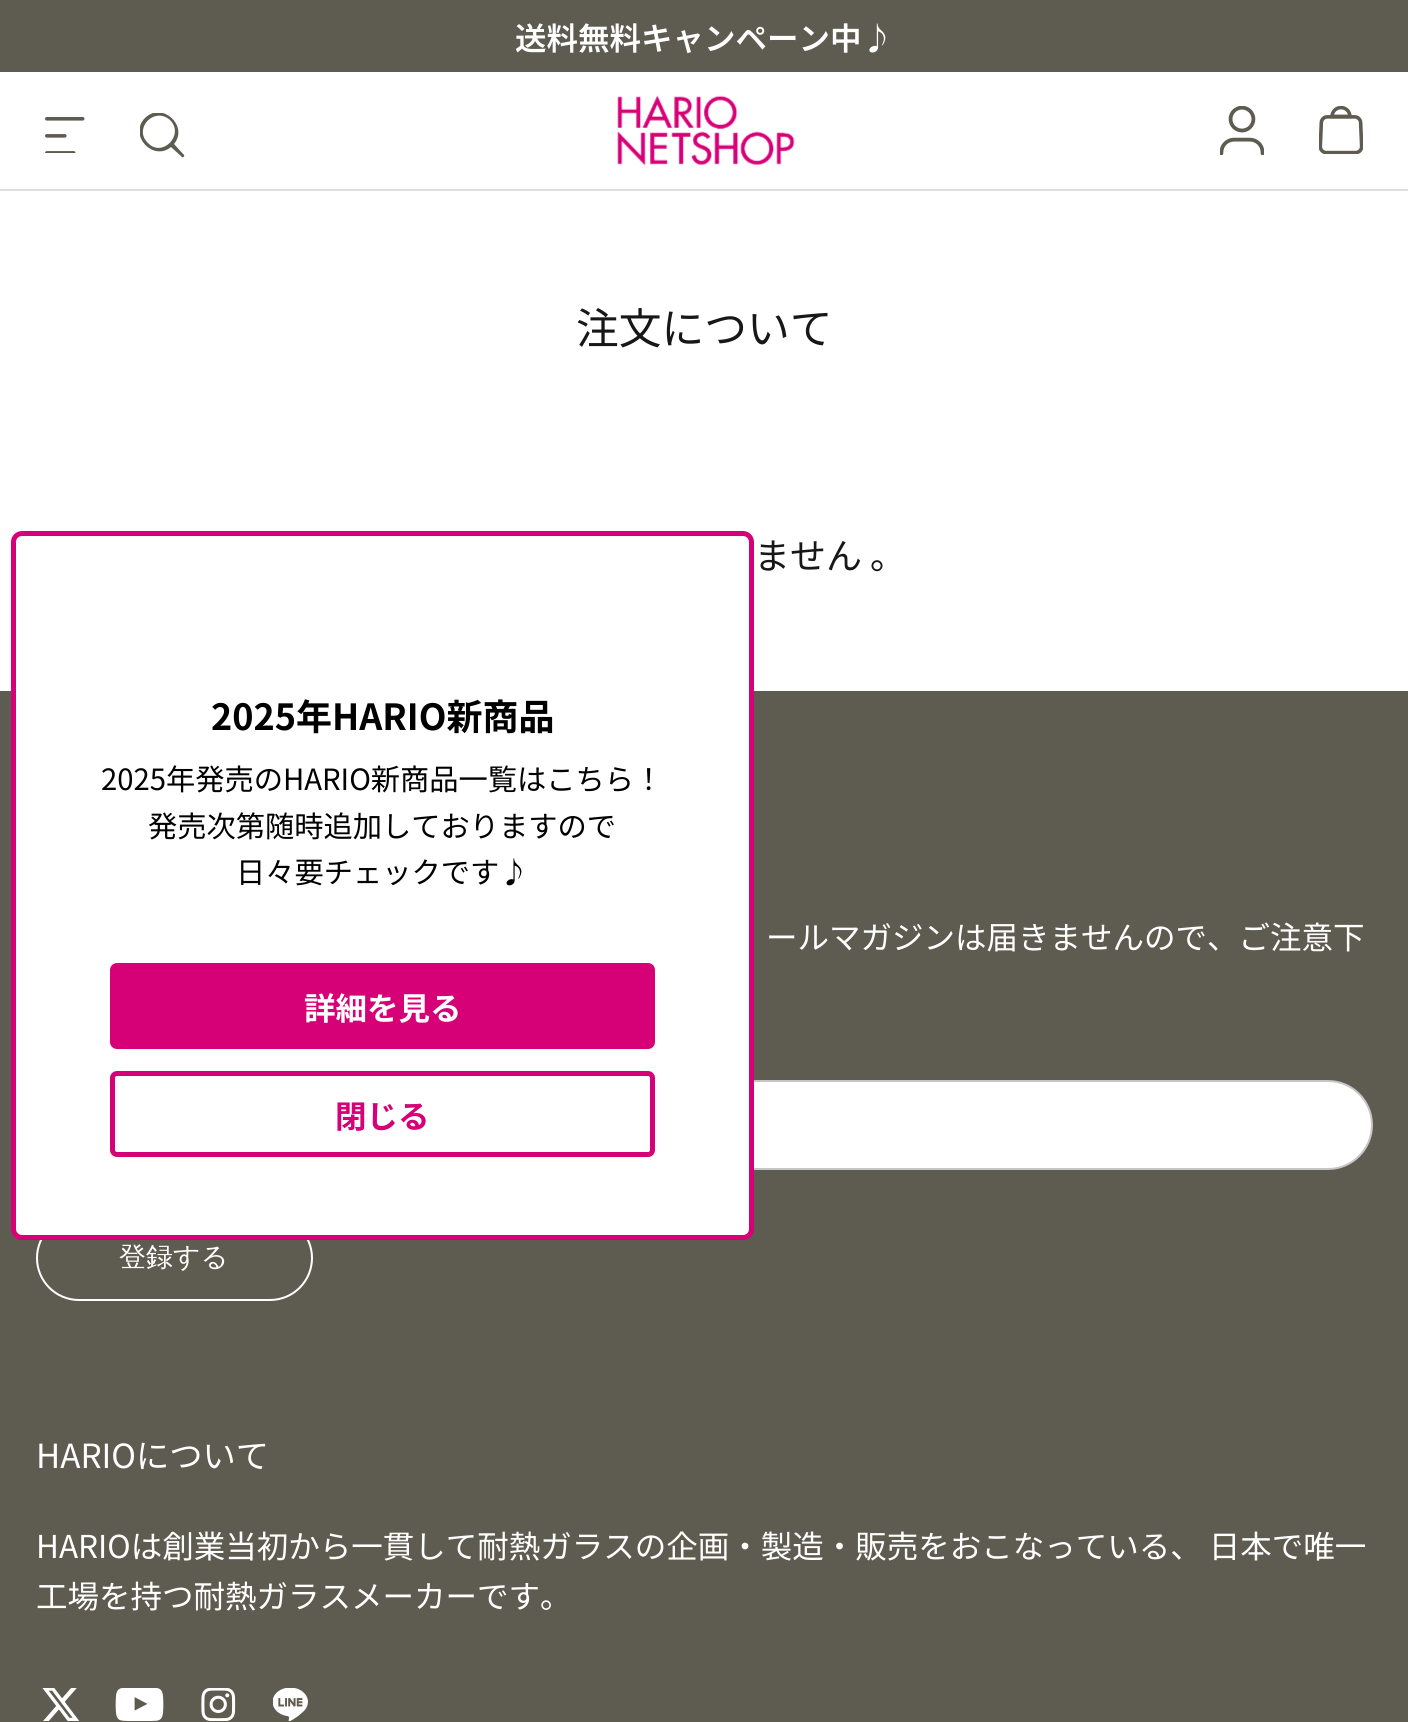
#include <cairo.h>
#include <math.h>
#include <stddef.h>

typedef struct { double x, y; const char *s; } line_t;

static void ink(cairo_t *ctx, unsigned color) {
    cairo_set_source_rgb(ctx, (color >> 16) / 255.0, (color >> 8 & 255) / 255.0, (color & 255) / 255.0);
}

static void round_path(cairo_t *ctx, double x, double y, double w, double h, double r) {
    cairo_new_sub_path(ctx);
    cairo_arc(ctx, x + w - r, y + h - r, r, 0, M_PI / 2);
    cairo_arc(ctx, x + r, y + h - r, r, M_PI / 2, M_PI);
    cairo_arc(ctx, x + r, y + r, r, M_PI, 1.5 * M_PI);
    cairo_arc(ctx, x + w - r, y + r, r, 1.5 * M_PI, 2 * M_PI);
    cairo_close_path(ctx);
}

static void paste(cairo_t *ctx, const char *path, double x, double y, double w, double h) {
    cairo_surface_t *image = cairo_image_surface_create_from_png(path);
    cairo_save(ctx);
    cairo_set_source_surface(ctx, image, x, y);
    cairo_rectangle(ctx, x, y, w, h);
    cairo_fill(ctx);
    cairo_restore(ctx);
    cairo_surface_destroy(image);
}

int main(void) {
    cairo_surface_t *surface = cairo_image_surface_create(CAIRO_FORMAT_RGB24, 1408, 1722);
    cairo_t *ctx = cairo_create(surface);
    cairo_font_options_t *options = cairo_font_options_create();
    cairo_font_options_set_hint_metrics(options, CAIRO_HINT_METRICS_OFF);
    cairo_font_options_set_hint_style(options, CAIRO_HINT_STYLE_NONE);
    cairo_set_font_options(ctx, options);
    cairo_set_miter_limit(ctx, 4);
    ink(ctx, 0xFFFFFF);
    cairo_paint(ctx);
    ink(ctx, 0x5E5C50);
    cairo_rectangle(ctx, 0, 0, 1408, 72);
    cairo_fill(ctx);
    cairo_select_font_face(ctx, "Noto Sans JP SemiBold", CAIRO_FONT_SLANT_NORMAL, CAIRO_FONT_WEIGHT_NORMAL);
    cairo_set_font_size(ctx, 31.5);
    ink(ctx, 0xFFFFFF);
    cairo_move_to(ctx, 515, 50);
    cairo_show_text(ctx, "送料無料キャンペーン中♪");
    ink(ctx, 0xDEDEDE);
    cairo_rectangle(ctx, 0, 189, 1408, 2);
    cairo_fill(ctx);
    paste(ctx, "media/1.png", 45, 117, 40, 36);
    cairo_save(ctx);
    cairo_rectangle(ctx, 140, 113, 45, 45);
    cairo_clip(ctx);
    ink(ctx, 0x5E5C50);
    cairo_new_path(ctx);
    cairo_move_to(ctx, 174, 144);
    cairo_curve_to(ctx, 189, 126, 162, 101, 145, 118);
    cairo_curve_to(ctx, 128, 135, 153, 162, 171, 147);
    cairo_line_to(ctx, 182, 157);
    cairo_curve_to(ctx, 183, 158, 185, 156, 184, 155);
    cairo_close_path(ctx);
    cairo_move_to(ctx, 148, 143);
    cairo_curve_to(ctx, 133, 129, 154, 106, 170, 120);
    cairo_curve_to(ctx, 185, 135, 162, 158, 148, 143);
    cairo_fill(ctx);
    cairo_restore(ctx);
    paste(ctx, "media/2.png", 617, 95, 178, 71);
    paste(ctx, "media/3.png", 1220, 106, 44, 49);
    paste(ctx, "media/4.png", 1319, 106, 44, 48);
    cairo_select_font_face(ctx, "Noto Sans JP", CAIRO_FONT_SLANT_NORMAL, CAIRO_FONT_WEIGHT_NORMAL);
    cairo_set_font_size(ctx, 42.75);
    ink(ctx, 0x171717);
    cairo_move_to(ctx, 576, 344);
    cairo_show_text(ctx, "注文について");
    cairo_set_font_size(ctx, 36);
    cairo_move_to(ctx, 754, 569);
    cairo_show_text(ctx, "ません 。");
    ink(ctx, 0x5E5C50);
    cairo_rectangle(ctx, 0, 691, 1408, 1031);
    cairo_fill(ctx);
    ink(ctx, 0xFFFFFF);
    round_path(ctx, 37, 1081, 1335, 88, 44);
    cairo_fill_preserve(ctx);
    ink(ctx, 0xC5C5C5);
    cairo_stroke(ctx);
    round_path(ctx, 37, 1216, 275, 84, 42);
    ink(ctx, 0xFFFFFF);
    cairo_stroke(ctx);
    round_path(ctx, 13.5, 533.5, 738, 704, 8.5);
    cairo_fill_preserve(ctx);
    ink(ctx, 0xD60077);
    cairo_set_line_width(ctx, 5);
    cairo_stroke(ctx);
    cairo_select_font_face(ctx, "Noto Sans JP", CAIRO_FONT_SLANT_NORMAL, CAIRO_FONT_WEIGHT_BOLD);
    ink(ctx, 0x000000);
    cairo_move_to(ctx, 211, 730);
    cairo_show_text(ctx, "2025年HARIO新商品");
    cairo_select_font_face(ctx, "Noto Sans JP", CAIRO_FONT_SLANT_NORMAL, CAIRO_FONT_WEIGHT_NORMAL);
    cairo_set_font_size(ctx, 29.25);
    {
        static const line_t items[] = {
            {101, 790, "2025年発売のHARIO新商品一覧はこちら！"},
            {148, 837, "発売次第随時追加しておりますので"},
            {236, 883, "日々要チェックです♪"},
        };
        for (size_t i = 0; i < sizeof items / sizeof *items; i++) {
            cairo_move_to(ctx, items[i].x, items[i].y);
            cairo_show_text(ctx, items[i].s);
        }
    }
    ink(ctx, 0xD60077);
    round_path(ctx, 112.5, 965.5, 540, 81, 4.5);
    cairo_fill_preserve(ctx);
    cairo_stroke(ctx);
    cairo_select_font_face(ctx, "Noto Sans JP", CAIRO_FONT_SLANT_NORMAL, CAIRO_FONT_WEIGHT_BOLD);
    cairo_set_font_size(ctx, 31.5);
    ink(ctx, 0xFFFFFF);
    cairo_move_to(ctx, 304, 1020);
    cairo_show_text(ctx, "詳細を見る");
    round_path(ctx, 112.5, 1073.5, 540, 81, 4.5);
    ink(ctx, 0xD60077);
    cairo_stroke(ctx);
    cairo_move_to(ctx, 335, 1128);
    cairo_show_text(ctx, "閉じる");
    cairo_select_font_face(ctx, "Noto Sans JP", CAIRO_FONT_SLANT_NORMAL, CAIRO_FONT_WEIGHT_NORMAL);
    ink(ctx, 0xFFFFFF);
    cairo_move_to(ctx, 766, 949);
    cairo_show_text(ctx, "ールマガジンは届きませんので、ご注意下");
    cairo_select_font_face(ctx, "WenQuanYi Zen Hei Medium", CAIRO_FONT_SLANT_NORMAL, CAIRO_FONT_WEIGHT_NORMAL);
    cairo_set_font_size(ctx, 27);
    cairo_move_to(ctx, 119, 1266);
    cairo_show_text(ctx, "登録する");
    cairo_select_font_face(ctx, "Noto Sans JP", CAIRO_FONT_SLANT_NORMAL, CAIRO_FONT_WEIGHT_NORMAL);
    cairo_set_font_size(ctx, 33.25);
    cairo_move_to(ctx, 36, 1468);
    cairo_show_text(ctx, "HARIOについて");
    cairo_set_font_size(ctx, 31.5);
    cairo_move_to(ctx, 36, 1558);
    cairo_show_text(ctx, "HARIOは創業当初から一貫して耐熱ガラスの企画・製造・販売をおこなっている、 日本で唯一");
    cairo_move_to(ctx, 36, 1608);
    cairo_show_text(ctx, "工場を持つ耐熱ガラスメーカーです。");
    paste(ctx, "media/5.png", 42, 1688, 38, 33);
    paste(ctx, "media/6.png", 115, 1688, 49, 33);
    paste(ctx, "media/7.png", 201, 1688, 35, 33);
    paste(ctx, "media/8.png", 273, 1688, 35, 33);
    cairo_surface_write_to_png(surface, "image.png");
    cairo_font_options_destroy(options);
    cairo_destroy(ctx);
    cairo_surface_destroy(surface);
    return 0;
}
